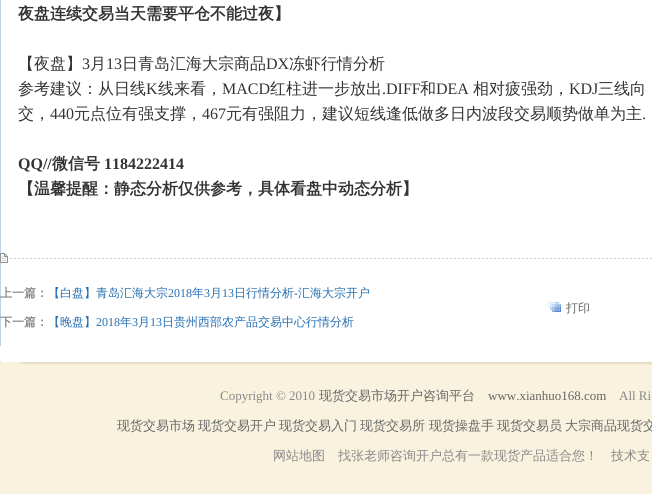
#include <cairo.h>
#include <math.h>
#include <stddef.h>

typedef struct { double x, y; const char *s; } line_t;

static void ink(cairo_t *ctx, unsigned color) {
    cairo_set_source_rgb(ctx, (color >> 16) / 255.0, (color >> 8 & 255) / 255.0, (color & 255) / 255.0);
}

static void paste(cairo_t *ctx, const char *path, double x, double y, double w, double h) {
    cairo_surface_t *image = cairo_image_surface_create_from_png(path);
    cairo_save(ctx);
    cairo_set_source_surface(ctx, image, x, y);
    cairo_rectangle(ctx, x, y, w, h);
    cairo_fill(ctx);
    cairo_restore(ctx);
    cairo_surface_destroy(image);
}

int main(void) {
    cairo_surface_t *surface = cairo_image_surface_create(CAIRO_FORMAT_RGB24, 652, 494);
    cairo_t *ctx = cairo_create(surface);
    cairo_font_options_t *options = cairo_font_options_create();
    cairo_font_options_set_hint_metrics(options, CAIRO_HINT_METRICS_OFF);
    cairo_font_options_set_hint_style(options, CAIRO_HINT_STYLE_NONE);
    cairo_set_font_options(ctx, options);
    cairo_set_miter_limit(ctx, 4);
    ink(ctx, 0xFFFFFF);
    cairo_paint(ctx);
    ink(ctx, 0xBFD2ED);
    cairo_rectangle(ctx, 0, 0, 1, 346);
    cairo_fill(ctx);
    cairo_select_font_face(ctx, "WenQuanYi Zen Hei", CAIRO_FONT_SLANT_NORMAL, CAIRO_FONT_WEIGHT_BOLD);
    cairo_set_font_size(ctx, 16);
    ink(ctx, 0x333333);
    cairo_move_to(ctx, 18, 19);
    cairo_show_text(ctx, "夜盘连续交易当天需要平仓不能过夜】");
    cairo_select_font_face(ctx, "WenQuanYi Zen Hei Medium", CAIRO_FONT_SLANT_NORMAL, CAIRO_FONT_WEIGHT_NORMAL);
    cairo_move_to(ctx, 18, 69);
    cairo_show_text(ctx, "【夜盘】");
    cairo_select_font_face(ctx, "Liberation Serif", CAIRO_FONT_SLANT_NORMAL, CAIRO_FONT_WEIGHT_NORMAL);
    cairo_move_to(ctx, 82, 69);
    cairo_show_text(ctx, "3");
    cairo_select_font_face(ctx, "WenQuanYi Zen Hei Medium", CAIRO_FONT_SLANT_NORMAL, CAIRO_FONT_WEIGHT_NORMAL);
    cairo_move_to(ctx, 90, 69);
    cairo_show_text(ctx, "月");
    cairo_select_font_face(ctx, "Liberation Serif", CAIRO_FONT_SLANT_NORMAL, CAIRO_FONT_WEIGHT_NORMAL);
    cairo_move_to(ctx, 106, 69);
    cairo_show_text(ctx, "13");
    cairo_select_font_face(ctx, "WenQuanYi Zen Hei Medium", CAIRO_FONT_SLANT_NORMAL, CAIRO_FONT_WEIGHT_NORMAL);
    cairo_move_to(ctx, 122, 69);
    cairo_show_text(ctx, "日青岛汇海大宗商品");
    cairo_select_font_face(ctx, "Liberation Serif", CAIRO_FONT_SLANT_NORMAL, CAIRO_FONT_WEIGHT_NORMAL);
    cairo_move_to(ctx, 266, 69);
    cairo_show_text(ctx, "DX");
    cairo_select_font_face(ctx, "WenQuanYi Zen Hei Medium", CAIRO_FONT_SLANT_NORMAL, CAIRO_FONT_WEIGHT_NORMAL);
    cairo_move_to(ctx, 289, 69);
    cairo_show_text(ctx, "冻虾行情分析");
    cairo_move_to(ctx, 18, 94);
    cairo_show_text(ctx, "参考建议：从日线");
    cairo_select_font_face(ctx, "Liberation Serif", CAIRO_FONT_SLANT_NORMAL, CAIRO_FONT_WEIGHT_NORMAL);
    cairo_move_to(ctx, 146, 94);
    cairo_show_text(ctx, "K");
    cairo_select_font_face(ctx, "WenQuanYi Zen Hei Medium", CAIRO_FONT_SLANT_NORMAL, CAIRO_FONT_WEIGHT_NORMAL);
    cairo_move_to(ctx, 158, 94);
    cairo_show_text(ctx, "线来看，");
    cairo_select_font_face(ctx, "Liberation Serif", CAIRO_FONT_SLANT_NORMAL, CAIRO_FONT_WEIGHT_NORMAL);
    cairo_move_to(ctx, 222, 94);
    cairo_show_text(ctx, "MACD");
    cairo_select_font_face(ctx, "WenQuanYi Zen Hei Medium", CAIRO_FONT_SLANT_NORMAL, CAIRO_FONT_WEIGHT_NORMAL);
    cairo_move_to(ctx, 270, 94);
    cairo_show_text(ctx, "红柱进一步放出");
    cairo_select_font_face(ctx, "Liberation Serif", CAIRO_FONT_SLANT_NORMAL, CAIRO_FONT_WEIGHT_NORMAL);
    cairo_move_to(ctx, 382, 94);
    cairo_show_text(ctx, ".DIFF");
    cairo_select_font_face(ctx, "WenQuanYi Zen Hei Medium", CAIRO_FONT_SLANT_NORMAL, CAIRO_FONT_WEIGHT_NORMAL);
    cairo_move_to(ctx, 420, 94);
    cairo_show_text(ctx, "和");
    cairo_select_font_face(ctx, "Liberation Serif", CAIRO_FONT_SLANT_NORMAL, CAIRO_FONT_WEIGHT_NORMAL);
    cairo_move_to(ctx, 436, 94);
    cairo_show_text(ctx, "DEA");
    cairo_select_font_face(ctx, "WenQuanYi Zen Hei Medium", CAIRO_FONT_SLANT_NORMAL, CAIRO_FONT_WEIGHT_NORMAL);
    cairo_move_to(ctx, 473, 94);
    cairo_show_text(ctx, "相对疲强劲，");
    cairo_select_font_face(ctx, "Liberation Serif", CAIRO_FONT_SLANT_NORMAL, CAIRO_FONT_WEIGHT_NORMAL);
    cairo_move_to(ctx, 569, 94);
    cairo_show_text(ctx, "KDJ");
    cairo_select_font_face(ctx, "WenQuanYi Zen Hei Medium", CAIRO_FONT_SLANT_NORMAL, CAIRO_FONT_WEIGHT_NORMAL);
    cairo_move_to(ctx, 598, 94);
    cairo_show_text(ctx, "三线向");
    cairo_move_to(ctx, 18, 119);
    cairo_show_text(ctx, "交，");
    cairo_select_font_face(ctx, "Liberation Serif", CAIRO_FONT_SLANT_NORMAL, CAIRO_FONT_WEIGHT_NORMAL);
    cairo_move_to(ctx, 50, 119);
    cairo_show_text(ctx, "440");
    cairo_select_font_face(ctx, "WenQuanYi Zen Hei Medium", CAIRO_FONT_SLANT_NORMAL, CAIRO_FONT_WEIGHT_NORMAL);
    cairo_move_to(ctx, 74, 119);
    cairo_show_text(ctx, "元点位有强支撑，");
    cairo_select_font_face(ctx, "Liberation Serif", CAIRO_FONT_SLANT_NORMAL, CAIRO_FONT_WEIGHT_NORMAL);
    cairo_move_to(ctx, 202, 119);
    cairo_show_text(ctx, "467");
    cairo_select_font_face(ctx, "WenQuanYi Zen Hei Medium", CAIRO_FONT_SLANT_NORMAL, CAIRO_FONT_WEIGHT_NORMAL);
    cairo_move_to(ctx, 226, 119);
    cairo_show_text(ctx, "元有强阻力，建议短线逢低做多日内波段交易顺势做单为主");
    cairo_select_font_face(ctx, "Liberation Serif", CAIRO_FONT_SLANT_NORMAL, CAIRO_FONT_WEIGHT_NORMAL);
    cairo_move_to(ctx, 642, 119);
    cairo_show_text(ctx, ".");
    cairo_select_font_face(ctx, "Liberation Serif", CAIRO_FONT_SLANT_NORMAL, CAIRO_FONT_WEIGHT_BOLD);
    cairo_move_to(ctx, 18, 169);
    cairo_show_text(ctx, "QQ//");
    cairo_select_font_face(ctx, "WenQuanYi Zen Hei", CAIRO_FONT_SLANT_NORMAL, CAIRO_FONT_WEIGHT_BOLD);
    cairo_move_to(ctx, 52, 169);
    cairo_show_text(ctx, "微信号");
    cairo_select_font_face(ctx, "Liberation Serif", CAIRO_FONT_SLANT_NORMAL, CAIRO_FONT_WEIGHT_BOLD);
    cairo_move_to(ctx, 104, 169);
    cairo_show_text(ctx, "1184222414");
    cairo_select_font_face(ctx, "WenQuanYi Zen Hei", CAIRO_FONT_SLANT_NORMAL, CAIRO_FONT_WEIGHT_BOLD);
    cairo_move_to(ctx, 18, 194);
    cairo_show_text(ctx, "【温馨提醒：静态分析仅供参考，具体看盘中动态分析】");
    paste(ctx, "media/1.png", 10, 258, 642, 1);
    paste(ctx, "media/2.png", 0, 253, 8, 10);
    cairo_set_font_size(ctx, 12);
    ink(ctx, 0x888888);
    cairo_move_to(ctx, 0, 297);
    cairo_show_text(ctx, "上一篇：");
    cairo_select_font_face(ctx, "WenQuanYi Zen Hei Medium", CAIRO_FONT_SLANT_NORMAL, CAIRO_FONT_WEIGHT_NORMAL);
    ink(ctx, 0x256EB1);
    cairo_move_to(ctx, 48, 297);
    cairo_show_text(ctx, "【白盘】青岛汇海大宗");
    cairo_select_font_face(ctx, "Liberation Serif", CAIRO_FONT_SLANT_NORMAL, CAIRO_FONT_WEIGHT_NORMAL);
    cairo_move_to(ctx, 168, 297);
    cairo_show_text(ctx, "2018");
    cairo_select_font_face(ctx, "WenQuanYi Zen Hei Medium", CAIRO_FONT_SLANT_NORMAL, CAIRO_FONT_WEIGHT_NORMAL);
    cairo_move_to(ctx, 192, 297);
    cairo_show_text(ctx, "年");
    cairo_select_font_face(ctx, "Liberation Serif", CAIRO_FONT_SLANT_NORMAL, CAIRO_FONT_WEIGHT_NORMAL);
    cairo_move_to(ctx, 204, 297);
    cairo_show_text(ctx, "3");
    cairo_select_font_face(ctx, "WenQuanYi Zen Hei Medium", CAIRO_FONT_SLANT_NORMAL, CAIRO_FONT_WEIGHT_NORMAL);
    cairo_move_to(ctx, 210, 297);
    cairo_show_text(ctx, "月");
    cairo_select_font_face(ctx, "Liberation Serif", CAIRO_FONT_SLANT_NORMAL, CAIRO_FONT_WEIGHT_NORMAL);
    cairo_move_to(ctx, 222, 297);
    cairo_show_text(ctx, "13");
    cairo_select_font_face(ctx, "WenQuanYi Zen Hei Medium", CAIRO_FONT_SLANT_NORMAL, CAIRO_FONT_WEIGHT_NORMAL);
    cairo_move_to(ctx, 234, 297);
    cairo_show_text(ctx, "日行情分析");
    cairo_select_font_face(ctx, "Liberation Serif", CAIRO_FONT_SLANT_NORMAL, CAIRO_FONT_WEIGHT_NORMAL);
    cairo_move_to(ctx, 294, 297);
    cairo_show_text(ctx, "-");
    cairo_select_font_face(ctx, "WenQuanYi Zen Hei Medium", CAIRO_FONT_SLANT_NORMAL, CAIRO_FONT_WEIGHT_NORMAL);
    cairo_move_to(ctx, 298, 297);
    cairo_show_text(ctx, "汇海大宗开户");
    cairo_select_font_face(ctx, "WenQuanYi Zen Hei", CAIRO_FONT_SLANT_NORMAL, CAIRO_FONT_WEIGHT_BOLD);
    ink(ctx, 0x888888);
    cairo_move_to(ctx, 0, 326);
    cairo_show_text(ctx, "下一篇：");
    cairo_select_font_face(ctx, "WenQuanYi Zen Hei Medium", CAIRO_FONT_SLANT_NORMAL, CAIRO_FONT_WEIGHT_NORMAL);
    ink(ctx, 0x256EB1);
    cairo_move_to(ctx, 48, 326);
    cairo_show_text(ctx, "【晚盘】");
    cairo_select_font_face(ctx, "Liberation Serif", CAIRO_FONT_SLANT_NORMAL, CAIRO_FONT_WEIGHT_NORMAL);
    cairo_move_to(ctx, 96, 326);
    cairo_show_text(ctx, "2018");
    cairo_select_font_face(ctx, "WenQuanYi Zen Hei Medium", CAIRO_FONT_SLANT_NORMAL, CAIRO_FONT_WEIGHT_NORMAL);
    cairo_move_to(ctx, 120, 326);
    cairo_show_text(ctx, "年");
    cairo_select_font_face(ctx, "Liberation Serif", CAIRO_FONT_SLANT_NORMAL, CAIRO_FONT_WEIGHT_NORMAL);
    cairo_move_to(ctx, 132, 326);
    cairo_show_text(ctx, "3");
    cairo_select_font_face(ctx, "WenQuanYi Zen Hei Medium", CAIRO_FONT_SLANT_NORMAL, CAIRO_FONT_WEIGHT_NORMAL);
    cairo_move_to(ctx, 138, 326);
    cairo_show_text(ctx, "月");
    cairo_select_font_face(ctx, "Liberation Serif", CAIRO_FONT_SLANT_NORMAL, CAIRO_FONT_WEIGHT_NORMAL);
    cairo_move_to(ctx, 150, 326);
    cairo_show_text(ctx, "13");
    cairo_select_font_face(ctx, "WenQuanYi Zen Hei Medium", CAIRO_FONT_SLANT_NORMAL, CAIRO_FONT_WEIGHT_NORMAL);
    cairo_move_to(ctx, 162, 326);
    cairo_show_text(ctx, "日贵州西部农产品交易中心行情分析");
    paste(ctx, "media/3.png", 548, 301, 13, 11);
    ink(ctx, 0x666666);
    cairo_move_to(ctx, 566, 312);
    cairo_show_text(ctx, "打印");
    ink(ctx, 0xF8F2DE);
    cairo_rectangle(ctx, 0, 365, 652, 129);
    cairo_fill(ctx);
    paste(ctx, "media/4.png", 0, 361, 652, 4);
    cairo_select_font_face(ctx, "Liberation Serif", CAIRO_FONT_SLANT_NORMAL, CAIRO_FONT_WEIGHT_NORMAL);
    cairo_set_font_size(ctx, 13);
    ink(ctx, 0x888888);
    cairo_move_to(ctx, 220, 400);
    cairo_show_text(ctx, "Copyright © 2010");
    cairo_select_font_face(ctx, "WenQuanYi Zen Hei Medium", CAIRO_FONT_SLANT_NORMAL, CAIRO_FONT_WEIGHT_NORMAL);
    ink(ctx, 0x666666);
    cairo_move_to(ctx, 319, 400);
    cairo_show_text(ctx, "现货交易市场开户咨询平台");
    cairo_select_font_face(ctx, "Liberation Serif", CAIRO_FONT_SLANT_NORMAL, CAIRO_FONT_WEIGHT_NORMAL);
    cairo_move_to(ctx, 488, 400);
    cairo_show_text(ctx, "www.xianhuo168.com");
    ink(ctx, 0x888888);
    cairo_move_to(ctx, 619, 400);
    cairo_show_text(ctx, "All Ri");
    cairo_select_font_face(ctx, "WenQuanYi Zen Hei Medium", CAIRO_FONT_SLANT_NORMAL, CAIRO_FONT_WEIGHT_NORMAL);
    ink(ctx, 0x666666);
    {
        static const line_t items[] = {
            {117, 430, "现货交易市场"},
            {198, 430, "现货交易开户"},
            {279, 430, "现货交易入门"},
            {360, 430, "现货交易所"},
            {429, 430, "现货操盘手"},
            {497, 430, "现货交易员"},
            {565, 430, "大宗商品现货交"},
        };
        for (size_t i = 0; i < sizeof items / sizeof *items; i++) {
            cairo_move_to(ctx, items[i].x, items[i].y);
            cairo_show_text(ctx, items[i].s);
        }
    }
    ink(ctx, 0x888888);
    cairo_move_to(ctx, 273, 460);
    cairo_show_text(ctx, "网站地图　找张老师咨询开户总有一款现货产品适合您！　技术支");
    cairo_surface_write_to_png(surface, "image.png");
    cairo_font_options_destroy(options);
    cairo_destroy(ctx);
    cairo_surface_destroy(surface);
    return 0;
}
